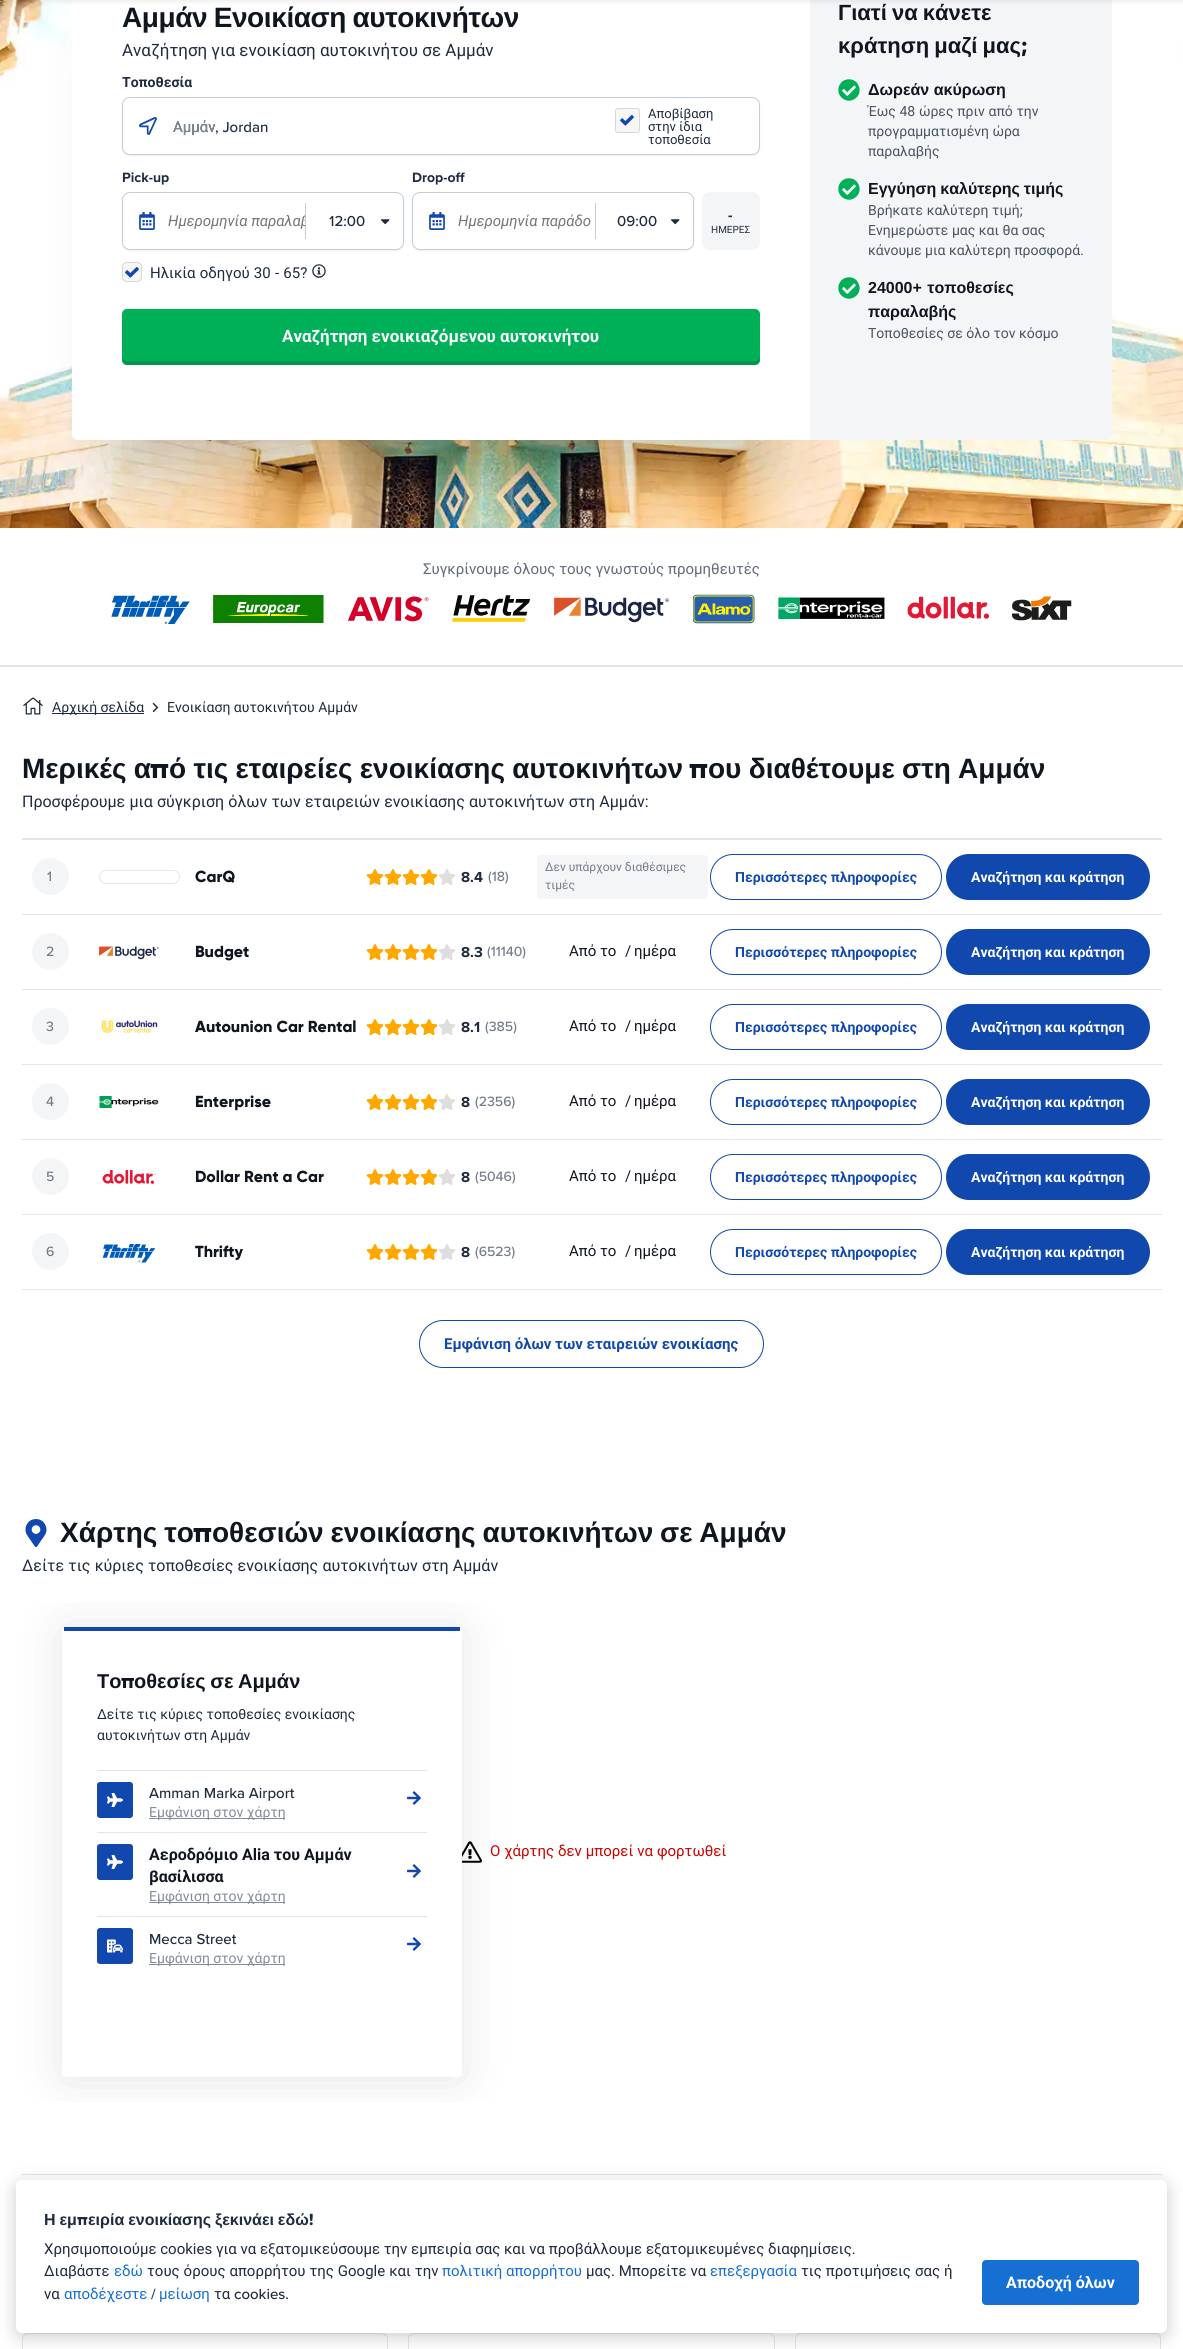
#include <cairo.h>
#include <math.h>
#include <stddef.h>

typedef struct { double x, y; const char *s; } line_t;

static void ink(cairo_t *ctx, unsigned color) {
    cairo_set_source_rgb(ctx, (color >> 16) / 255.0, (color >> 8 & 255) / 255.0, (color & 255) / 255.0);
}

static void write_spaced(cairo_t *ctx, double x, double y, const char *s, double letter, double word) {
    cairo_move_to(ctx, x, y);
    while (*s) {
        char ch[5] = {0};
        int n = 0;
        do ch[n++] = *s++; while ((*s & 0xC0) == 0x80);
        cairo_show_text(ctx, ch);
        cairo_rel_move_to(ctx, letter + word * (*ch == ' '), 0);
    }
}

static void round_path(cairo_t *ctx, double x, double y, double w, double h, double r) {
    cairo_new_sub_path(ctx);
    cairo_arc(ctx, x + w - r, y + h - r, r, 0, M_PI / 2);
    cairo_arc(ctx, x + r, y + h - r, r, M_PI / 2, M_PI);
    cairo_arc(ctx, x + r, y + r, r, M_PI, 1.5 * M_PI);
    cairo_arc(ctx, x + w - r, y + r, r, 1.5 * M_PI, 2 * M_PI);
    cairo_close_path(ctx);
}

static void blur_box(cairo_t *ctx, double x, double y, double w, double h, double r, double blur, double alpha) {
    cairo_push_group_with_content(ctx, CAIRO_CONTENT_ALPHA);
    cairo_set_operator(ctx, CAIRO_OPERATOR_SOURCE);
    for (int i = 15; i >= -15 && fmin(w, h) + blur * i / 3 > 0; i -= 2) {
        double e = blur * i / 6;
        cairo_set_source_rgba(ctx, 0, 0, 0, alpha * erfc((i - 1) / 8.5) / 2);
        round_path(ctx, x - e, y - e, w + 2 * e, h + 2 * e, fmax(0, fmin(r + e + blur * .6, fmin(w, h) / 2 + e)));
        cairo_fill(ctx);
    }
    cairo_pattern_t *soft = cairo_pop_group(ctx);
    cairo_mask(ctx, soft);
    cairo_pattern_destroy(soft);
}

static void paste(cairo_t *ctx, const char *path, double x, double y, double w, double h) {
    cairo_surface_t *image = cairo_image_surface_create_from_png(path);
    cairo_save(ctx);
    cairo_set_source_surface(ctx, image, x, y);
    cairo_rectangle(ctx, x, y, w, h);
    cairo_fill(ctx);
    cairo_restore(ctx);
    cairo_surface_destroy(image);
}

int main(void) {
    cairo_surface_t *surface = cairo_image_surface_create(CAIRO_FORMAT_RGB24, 1183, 2349);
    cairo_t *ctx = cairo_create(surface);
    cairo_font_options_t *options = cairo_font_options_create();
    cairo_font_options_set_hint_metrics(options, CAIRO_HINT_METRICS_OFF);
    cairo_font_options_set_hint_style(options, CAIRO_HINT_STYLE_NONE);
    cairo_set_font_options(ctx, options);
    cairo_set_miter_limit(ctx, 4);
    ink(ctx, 0xFFFFFF);
    cairo_paint(ctx);
    paste(ctx, "media/1.png", 0, 0, 1183, 528);
    ink(ctx, 0x183B56);
    blur_box(ctx, 116, 68, 650, 402, 0, 32, 0.23);
    ink(ctx, 0xFFFFFF);
    cairo_new_path(ctx);
    cairo_move_to(ctx, 78, -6);
    cairo_line_to(ctx, 810, -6);
    cairo_line_to(ctx, 810, 440);
    cairo_line_to(ctx, 78, 440);
    cairo_curve_to(ctx, 74.5, 440, 72, 437.5, 72, 434);
    cairo_line_to(ctx, 72, 0);
    cairo_curve_to(ctx, 72, -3.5, 74.5, -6, 78, -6);
    cairo_close_path(ctx);
    cairo_fill(ctx);
    ink(ctx, 0xF4F5F7);
    cairo_new_path(ctx);
    cairo_move_to(ctx, 810, -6);
    cairo_line_to(ctx, 1106, -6);
    cairo_curve_to(ctx, 1109.5, -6, 1112, -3.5, 1112, 0);
    cairo_line_to(ctx, 1112, 434);
    cairo_curve_to(ctx, 1112, 437.5, 1109.5, 440, 1106, 440);
    cairo_line_to(ctx, 810, 440);
    cairo_close_path(ctx);
    cairo_fill(ctx);
    ink(ctx, 0x000000);
    blur_box(ctx, 0, -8, 1183, 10, 0, 2.5, 0.07);
    cairo_select_font_face(ctx, "Liberation Sans", CAIRO_FONT_SLANT_NORMAL, CAIRO_FONT_WEIGHT_BOLD);
    cairo_set_font_size(ctx, 28);
    ink(ctx, 0x10161F);
    write_spaced(ctx, 122, 27, "Αμμάν Ενοικίαση αυτοκινήτων", -0.4, -1);
    cairo_select_font_face(ctx, "Roboto", CAIRO_FONT_SLANT_NORMAL, CAIRO_FONT_WEIGHT_NORMAL);
    cairo_set_font_size(ctx, 17);
    ink(ctx, 0x1F2B3E);
    cairo_move_to(ctx, 122, 56);
    cairo_show_text(ctx, "Αναζήτηση για ενοικίαση αυτοκινήτου σε Αμμάν");
    cairo_select_font_face(ctx, "Roboto", CAIRO_FONT_SLANT_NORMAL, CAIRO_FONT_WEIGHT_BOLD);
    cairo_set_font_size(ctx, 14);
    cairo_move_to(ctx, 122, 87);
    cairo_show_text(ctx, "Τοποθεσία");
    ink(ctx, 0x000000);
    blur_box(ctx, 122, 98, 638, 58, 8, 1, 0.07);
    ink(ctx, 0xFFFFFF);
    round_path(ctx, 122.5, 97.5, 637, 57, 7.5);
    cairo_fill_preserve(ctx);
    ink(ctx, 0xC4CDD4);
    cairo_set_line_width(ctx, 1);
    cairo_stroke(ctx);
    paste(ctx, "media/2.png", 139, 117, 18, 18);
    cairo_select_font_face(ctx, "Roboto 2", CAIRO_FONT_SLANT_NORMAL, CAIRO_FONT_WEIGHT_NORMAL);
    cairo_set_font_size(ctx, 15);
    ink(ctx, 0x1F2B3E);
    cairo_move_to(ctx, 173, 132);
    cairo_show_text(ctx, "Αμμάν");
    cairo_select_font_face(ctx, "Proxima Nova Medium", CAIRO_FONT_SLANT_NORMAL, CAIRO_FONT_WEIGHT_NORMAL);
    cairo_move_to(ctx, 215, 132);
    cairo_show_text(ctx, ", Jordan");
    cairo_select_font_face(ctx, "Roboto", CAIRO_FONT_SLANT_NORMAL, CAIRO_FONT_WEIGHT_NORMAL);
    ink(ctx, 0x828994);
    cairo_move_to(ctx, 173, 132);
    cairo_show_text(ctx, "Αμμάν");
    ink(ctx, 0xF6F6F6);
    round_path(ctx, 615.5, 108.5, 24, 24, 2.5);
    cairo_fill_preserve(ctx);
    ink(ctx, 0xD7D7D7);
    cairo_stroke(ctx);
    paste(ctx, "media/3.png", 620, 115, 14, 11);
    cairo_set_font_size(ctx, 13);
    ink(ctx, 0x1F2B3E);
    {
        static const line_t items[] = {
            {648, 118, "Αποβίβαση"},
            {648, 131, "στην ίδια"},
            {648, 144, "τοποθεσία"},
        };
        for (size_t i = 0; i < sizeof items / sizeof *items; i++) {
            cairo_move_to(ctx, items[i].x, items[i].y);
            cairo_show_text(ctx, items[i].s);
        }
    }
    cairo_select_font_face(ctx, "Proxima Nova", CAIRO_FONT_SLANT_NORMAL, CAIRO_FONT_WEIGHT_BOLD);
    cairo_set_font_size(ctx, 14);
    cairo_move_to(ctx, 122, 182);
    cairo_show_text(ctx, "Pick-up");
    cairo_save(ctx);
    cairo_set_fill_rule(ctx, CAIRO_FILL_RULE_EVEN_ODD);
    cairo_new_path(ctx);
    cairo_move_to(ctx, 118, 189);
    cairo_line_to(ctx, 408, 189);
    cairo_line_to(ctx, 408, 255);
    cairo_line_to(ctx, 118, 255);
    cairo_close_path(ctx);
    cairo_move_to(ctx, 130, 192);
    cairo_line_to(ctx, 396, 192);
    cairo_curve_to(ctx, 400.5, 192, 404, 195.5, 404, 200);
    cairo_line_to(ctx, 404, 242);
    cairo_curve_to(ctx, 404, 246.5, 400.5, 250, 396, 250);
    cairo_line_to(ctx, 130, 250);
    cairo_curve_to(ctx, 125.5, 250, 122, 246.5, 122, 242);
    cairo_line_to(ctx, 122, 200);
    cairo_curve_to(ctx, 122, 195.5, 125.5, 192, 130, 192);
    cairo_close_path(ctx);
    cairo_clip(ctx);
    ink(ctx, 0x000000);
    blur_box(ctx, 122, 193, 282, 58, 8, 1, 0.07);
    cairo_restore(ctx);
    round_path(ctx, 122.5, 192.5, 281, 57, 7.5);
    ink(ctx, 0xC4CDD4);
    cairo_stroke(ctx);
    paste(ctx, "media/4.png", 139, 212, 16, 18);
    cairo_save(ctx);
    cairo_rectangle(ctx, 168, 212, 137, 18);
    cairo_clip(ctx);
    cairo_select_font_face(ctx, "Roboto", CAIRO_FONT_SLANT_ITALIC, CAIRO_FONT_WEIGHT_NORMAL);
    cairo_set_font_size(ctx, 15);
    ink(ctx, 0x757575);
    cairo_move_to(ctx, 168, 226);
    cairo_show_text(ctx, "Ημερομηνία παραλαβ");
    cairo_restore(ctx);
    cairo_rectangle(ctx, 305, 203, 1, 36);
    cairo_fill(ctx);
    cairo_select_font_face(ctx, "Proxima Nova Medium", CAIRO_FONT_SLANT_NORMAL, CAIRO_FONT_WEIGHT_NORMAL);
    cairo_set_font_size(ctx, 15);
    ink(ctx, 0x1F2B3E);
    cairo_move_to(ctx, 329, 226);
    cairo_show_text(ctx, "12:00");
    paste(ctx, "media/5.png", 381, 219, 9, 6);
    cairo_select_font_face(ctx, "Proxima Nova", CAIRO_FONT_SLANT_NORMAL, CAIRO_FONT_WEIGHT_BOLD);
    cairo_set_font_size(ctx, 14);
    cairo_move_to(ctx, 412, 182);
    cairo_show_text(ctx, "Drop-off");
    cairo_save(ctx);
    cairo_set_fill_rule(ctx, CAIRO_FILL_RULE_EVEN_ODD);
    cairo_new_path(ctx);
    cairo_move_to(ctx, 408, 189);
    cairo_line_to(ctx, 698, 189);
    cairo_line_to(ctx, 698, 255);
    cairo_line_to(ctx, 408, 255);
    cairo_close_path(ctx);
    cairo_move_to(ctx, 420, 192);
    cairo_line_to(ctx, 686, 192);
    cairo_curve_to(ctx, 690.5, 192, 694, 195.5, 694, 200);
    cairo_line_to(ctx, 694, 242);
    cairo_curve_to(ctx, 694, 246.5, 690.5, 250, 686, 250);
    cairo_line_to(ctx, 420, 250);
    cairo_curve_to(ctx, 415.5, 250, 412, 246.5, 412, 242);
    cairo_line_to(ctx, 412, 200);
    cairo_curve_to(ctx, 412, 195.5, 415.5, 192, 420, 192);
    cairo_close_path(ctx);
    cairo_clip(ctx);
    ink(ctx, 0x000000);
    blur_box(ctx, 412, 193, 282, 58, 8, 1, 0.07);
    cairo_restore(ctx);
    round_path(ctx, 412.5, 192.5, 281, 57, 7.5);
    ink(ctx, 0xC4CDD4);
    cairo_stroke(ctx);
    paste(ctx, "media/4.png", 429, 212, 16, 18);
    cairo_select_font_face(ctx, "Roboto", CAIRO_FONT_SLANT_ITALIC, CAIRO_FONT_WEIGHT_NORMAL);
    cairo_set_font_size(ctx, 15);
    ink(ctx, 0x757575);
    cairo_move_to(ctx, 458, 226);
    cairo_show_text(ctx, "Ημερομηνία παράδο");
    ink(ctx, 0xC4CDD4);
    cairo_rectangle(ctx, 595, 203, 1, 36);
    cairo_fill(ctx);
    cairo_select_font_face(ctx, "Proxima Nova Medium", CAIRO_FONT_SLANT_NORMAL, CAIRO_FONT_WEIGHT_NORMAL);
    ink(ctx, 0x1F2B3E);
    cairo_move_to(ctx, 617, 226);
    cairo_show_text(ctx, "09:00");
    paste(ctx, "media/5.png", 671, 219, 9, 6);
    ink(ctx, 0xF4F5F7);
    round_path(ctx, 702, 192, 58, 58, 8);
    cairo_fill(ctx);
    cairo_select_font_face(ctx, "Proxima Nova", CAIRO_FONT_SLANT_NORMAL, CAIRO_FONT_WEIGHT_BOLD);
    ink(ctx, 0x1F2B3E);
    cairo_move_to(ctx, 728, 220);
    cairo_show_text(ctx, "-");
    cairo_select_font_face(ctx, "Roboto", CAIRO_FONT_SLANT_NORMAL, CAIRO_FONT_WEIGHT_NORMAL);
    cairo_set_font_size(ctx, 10);
    cairo_move_to(ctx, 711, 233);
    cairo_show_text(ctx, "ΗΜΕΡΕΣ");
    ink(ctx, 0xF6F6F6);
    round_path(ctx, 122.5, 262.5, 19, 19, 4.5);
    cairo_fill_preserve(ctx);
    ink(ctx, 0xD7D7D7);
    cairo_stroke(ctx);
    paste(ctx, "media/3.png", 125, 267, 14, 11);
    cairo_set_font_size(ctx, 15);
    ink(ctx, 0x1F2B3E);
    write_spaced(ctx, 150, 278, "Ηλικία οδηγού 30 - 65?", 0, 0.5);
    paste(ctx, "media/6.png", 312, 264, 14, 14);
    ink(ctx, 0x00B058);
    round_path(ctx, 122, 309, 638, 56, 5);
    cairo_fill(ctx);
    cairo_set_source_rgba(ctx, 0, 0, 0, 0.15);
    cairo_new_path(ctx);
    cairo_move_to(ctx, 122, 356);
    cairo_line_to(ctx, 122, 360);
    cairo_curve_to(ctx, 122, 363, 124, 365, 127, 365);
    cairo_line_to(ctx, 755, 365);
    cairo_curve_to(ctx, 758, 365, 760, 363, 760, 360);
    cairo_line_to(ctx, 760, 356);
    cairo_curve_to(ctx, 760, 359, 758, 361, 755, 361);
    cairo_line_to(ctx, 127, 361);
    cairo_curve_to(ctx, 124, 361, 122, 359, 122, 356);
    cairo_close_path(ctx);
    cairo_fill(ctx);
    cairo_select_font_face(ctx, "Roboto", CAIRO_FONT_SLANT_NORMAL, CAIRO_FONT_WEIGHT_BOLD);
    cairo_set_font_size(ctx, 17);
    ink(ctx, 0xFFFFFF);
    cairo_move_to(ctx, 282, 342);
    cairo_show_text(ctx, "Αναζήτηση ενοικιαζόμενου αυτοκινήτου");
    cairo_select_font_face(ctx, "Liberation Sans", CAIRO_FONT_SLANT_NORMAL, CAIRO_FONT_WEIGHT_BOLD);
    cairo_set_font_size(ctx, 22);
    ink(ctx, 0x10161F);
    write_spaced(ctx, 838, 20, "Γιατί να κάνετε", 0, -1);
    write_spaced(ctx, 838, 53, "κράτηση μαζί μας", 0, -1);
    cairo_select_font_face(ctx, "Gilroy ExtraBold", CAIRO_FONT_SLANT_NORMAL, CAIRO_FONT_WEIGHT_NORMAL);
    cairo_move_to(ctx, 1021, 53);
    cairo_show_text(ctx, ";");
    paste(ctx, "media/7.png", 838, 79, 22, 22);
    cairo_select_font_face(ctx, "Liberation Sans", CAIRO_FONT_SLANT_NORMAL, CAIRO_FONT_WEIGHT_BOLD);
    cairo_set_font_size(ctx, 16);
    cairo_move_to(ctx, 868, 95);
    cairo_show_text(ctx, "Δωρεάν ακύρωση");
    cairo_select_font_face(ctx, "Roboto", CAIRO_FONT_SLANT_NORMAL, CAIRO_FONT_WEIGHT_NORMAL);
    cairo_set_font_size(ctx, 14);
    ink(ctx, 0x4A5363);
    write_spaced(ctx, 868, 116, "Έως 48 ώρες πριν από την", 0, 0.25);
    cairo_move_to(ctx, 868, 136);
    cairo_show_text(ctx, "προγραμματισμένη ώρα");
    cairo_move_to(ctx, 868, 156);
    cairo_show_text(ctx, "παραλαβής");
    paste(ctx, "media/7.png", 838, 178, 22, 22);
    cairo_select_font_face(ctx, "Liberation Sans", CAIRO_FONT_SLANT_NORMAL, CAIRO_FONT_WEIGHT_BOLD);
    cairo_set_font_size(ctx, 16);
    ink(ctx, 0x10161F);
    write_spaced(ctx, 868, 194, "Εγγύηση καλύτερης τιμής", 0, -0.5);
    cairo_select_font_face(ctx, "Roboto", CAIRO_FONT_SLANT_NORMAL, CAIRO_FONT_WEIGHT_NORMAL);
    cairo_set_font_size(ctx, 14);
    ink(ctx, 0x4A5363);
    {
        static const line_t items[] = {
            {868, 215, "Βρήκατε καλύτερη τιμή;"},
            {868, 235, "Ενημερώστε μας και θα σας"},
            {868, 255, "κάνουμε μια καλύτερη προσφορά."},
        };
        for (size_t i = 0; i < sizeof items / sizeof *items; i++) {
            cairo_move_to(ctx, items[i].x, items[i].y);
            cairo_show_text(ctx, items[i].s);
        }
    }
    paste(ctx, "media/7.png", 838, 277, 22, 22);
    cairo_select_font_face(ctx, "Liberation Sans", CAIRO_FONT_SLANT_NORMAL, CAIRO_FONT_WEIGHT_BOLD);
    cairo_set_font_size(ctx, 16);
    ink(ctx, 0x10161F);
    write_spaced(ctx, 868, 293, "24000+ τοποθεσίες", 0, 1);
    cairo_move_to(ctx, 868, 317);
    cairo_show_text(ctx, "παραλαβής");
    cairo_select_font_face(ctx, "Roboto", CAIRO_FONT_SLANT_NORMAL, CAIRO_FONT_WEIGHT_NORMAL);
    cairo_set_font_size(ctx, 14);
    ink(ctx, 0x4A5363);
    cairo_move_to(ctx, 868, 338);
    cairo_show_text(ctx, "Τοποθεσίες σε όλο τον κόσμο");
    ink(ctx, 0xE3E6E8);
    cairo_rectangle(ctx, 0, 665, 1183, 2);
    cairo_fill(ctx);
    cairo_set_font_size(ctx, 15);
    ink(ctx, 0x626B78);
    write_spaced(ctx, 423, 574, "Συγκρίνουμε όλους τους γνωστούς προμηθευτές", 0, 0.25);
    paste(ctx, "media/8.png", 111, 595, 79, 29);
    paste(ctx, "media/9.png", 213, 595, 111, 28);
    paste(ctx, "media/10.png", 348, 596, 81, 26);
    paste(ctx, "media/11.png", 452, 595, 78, 27);
    paste(ctx, "media/12.png", 554, 597, 115, 26);
    paste(ctx, "media/13.png", 693, 594, 62, 30);
    paste(ctx, "media/14.png", 778, 597, 107, 22);
    paste(ctx, "media/15.png", 907, 596, 82, 23);
    paste(ctx, "media/16.png", 1012, 596, 60, 25);
    paste(ctx, "media/17.png", 23, 697, 20, 18);
    ink(ctx, 0x1F2B3E);
    cairo_rectangle(ctx, 52, 713, 92, 1);
    cairo_fill(ctx);
    cairo_set_font_size(ctx, 14);
    cairo_move_to(ctx, 52, 712);
    cairo_show_text(ctx, "Αρχική σελίδα");
    paste(ctx, "media/18.png", 152, 702, 7, 11);
    cairo_move_to(ctx, 167, 712);
    cairo_show_text(ctx, "Ενοικίαση αυτοκινήτου Αμμάν");
    cairo_select_font_face(ctx, "Liberation Sans", CAIRO_FONT_SLANT_NORMAL, CAIRO_FONT_WEIGHT_BOLD);
    cairo_set_font_size(ctx, 28);
    ink(ctx, 0x10161F);
    write_spaced(ctx, 22, 778, "Μερικές α", 0, -0.5);
    cairo_select_font_face(ctx, "Gilroy ExtraBold", CAIRO_FONT_SLANT_NORMAL, CAIRO_FONT_WEIGHT_NORMAL);
    cairo_move_to(ctx, 150, 778);
    cairo_show_text(ctx, "π");
    cairo_select_font_face(ctx, "Liberation Sans", CAIRO_FONT_SLANT_NORMAL, CAIRO_FONT_WEIGHT_BOLD);
    write_spaced(ctx, 169, 778, "ό τις εταιρείες ενοικίασης αυτοκινήτων", 0, -0.5);
    cairo_select_font_face(ctx, "Gilroy ExtraBold", CAIRO_FONT_SLANT_NORMAL, CAIRO_FONT_WEIGHT_NORMAL);
    cairo_move_to(ctx, 689, 778);
    cairo_show_text(ctx, "π");
    cairo_select_font_face(ctx, "Liberation Sans", CAIRO_FONT_SLANT_NORMAL, CAIRO_FONT_WEIGHT_BOLD);
    write_spaced(ctx, 708, 778, "ου διαθέτουμε στη Αμμάν", 0, -0.5);
    cairo_select_font_face(ctx, "Roboto", CAIRO_FONT_SLANT_NORMAL, CAIRO_FONT_WEIGHT_NORMAL);
    cairo_set_font_size(ctx, 16);
    ink(ctx, 0x1F2B3E);
    write_spaced(ctx, 22, 807, "Προσφέρουμε μια σύγκριση όλων των εταιρειών ενοικίασης αυτοκινήτων στη Αμμάν:", 0, 0.25);
    ink(ctx, 0xE3E6E8);
    cairo_rectangle(ctx, 22, 838, 1140, 2);
    cairo_fill(ctx);
    cairo_rectangle(ctx, 22, 914, 1140, 1);
    cairo_fill(ctx);
    ink(ctx, 0xF4F5F7);
    cairo_arc(ctx, 50.5, 876.5, 18.5, 0, 2 * M_PI);
    cairo_fill(ctx);
    cairo_select_font_face(ctx, "Proxima Nova Medium", CAIRO_FONT_SLANT_NORMAL, CAIRO_FONT_WEIGHT_NORMAL);
    cairo_set_font_size(ctx, 14);
    ink(ctx, 0x747C88);
    cairo_move_to(ctx, 47, 881);
    cairo_show_text(ctx, "1");
    round_path(ctx, 99.5, 870.5, 80, 13, 6.5);
    ink(ctx, 0xE3E6E8);
    cairo_stroke(ctx);
    cairo_select_font_face(ctx, "Gilroy ExtraBold", CAIRO_FONT_SLANT_NORMAL, CAIRO_FONT_WEIGHT_NORMAL);
    cairo_set_font_size(ctx, 16);
    ink(ctx, 0x10161F);
    cairo_move_to(ctx, 195, 882);
    cairo_show_text(ctx, "CarQ");
    paste(ctx, "media/19.png", 366, 869, 18, 16);
    paste(ctx, "media/19.png", 384, 869, 18, 16);
    paste(ctx, "media/19.png", 402, 869, 18, 16);
    paste(ctx, "media/19.png", 420, 869, 18, 16);
    paste(ctx, "media/20.png", 438, 869, 18, 16);
    cairo_select_font_face(ctx, "Proxima Nova", CAIRO_FONT_SLANT_NORMAL, CAIRO_FONT_WEIGHT_BOLD);
    cairo_set_font_size(ctx, 15);
    ink(ctx, 0x1F2B3E);
    cairo_move_to(ctx, 461, 882);
    cairo_show_text(ctx, "8.4");
    cairo_select_font_face(ctx, "Proxima Nova Medium", CAIRO_FONT_SLANT_NORMAL, CAIRO_FONT_WEIGHT_NORMAL);
    cairo_set_font_size(ctx, 14);
    ink(ctx, 0x747C88);
    cairo_move_to(ctx, 488, 881);
    cairo_show_text(ctx, "(18)");
    ink(ctx, 0xF4F5F7);
    round_path(ctx, 537, 855, 171, 44, 4);
    cairo_fill(ctx);
    cairo_select_font_face(ctx, "Roboto", CAIRO_FONT_SLANT_NORMAL, CAIRO_FONT_WEIGHT_NORMAL);
    cairo_set_font_size(ctx, 12);
    ink(ctx, 0x747C88);
    cairo_move_to(ctx, 545, 871);
    cairo_show_text(ctx, "Δεν υπάρχουν διαθέσιμες");
    cairo_move_to(ctx, 545, 889);
    cairo_show_text(ctx, "τιμές");
    round_path(ctx, 710.5, 854.5, 231, 45, 22.5);
    ink(ctx, 0x1148AD);
    cairo_stroke(ctx);
    cairo_select_font_face(ctx, "Roboto", CAIRO_FONT_SLANT_NORMAL, CAIRO_FONT_WEIGHT_BOLD);
    cairo_set_font_size(ctx, 14);
    cairo_move_to(ctx, 735, 882);
    cairo_show_text(ctx, "Περισσότερες πληροφορίες");
    round_path(ctx, 946, 854, 204, 46, 23);
    cairo_fill(ctx);
    ink(ctx, 0xFFFFFF);
    cairo_move_to(ctx, 971, 882);
    cairo_show_text(ctx, "Αναζήτηση και κράτηση");
    ink(ctx, 0xE3E6E8);
    cairo_rectangle(ctx, 22, 989, 1140, 1);
    cairo_fill(ctx);
    ink(ctx, 0xF4F5F7);
    cairo_arc(ctx, 50.5, 951.5, 18.5, 0, 2 * M_PI);
    cairo_fill(ctx);
    cairo_select_font_face(ctx, "Proxima Nova Medium", CAIRO_FONT_SLANT_NORMAL, CAIRO_FONT_WEIGHT_NORMAL);
    ink(ctx, 0x747C88);
    cairo_move_to(ctx, 46, 956);
    cairo_show_text(ctx, "2");
    paste(ctx, "media/21.png", 99, 946, 60, 14);
    cairo_select_font_face(ctx, "Gilroy ExtraBold", CAIRO_FONT_SLANT_NORMAL, CAIRO_FONT_WEIGHT_NORMAL);
    cairo_set_font_size(ctx, 16);
    ink(ctx, 0x10161F);
    cairo_move_to(ctx, 195, 957);
    cairo_show_text(ctx, "Budget");
    paste(ctx, "media/19.png", 366, 944, 18, 16);
    paste(ctx, "media/19.png", 384, 944, 18, 16);
    paste(ctx, "media/19.png", 402, 944, 18, 16);
    paste(ctx, "media/19.png", 420, 944, 18, 16);
    paste(ctx, "media/20.png", 438, 944, 18, 16);
    cairo_select_font_face(ctx, "Proxima Nova", CAIRO_FONT_SLANT_NORMAL, CAIRO_FONT_WEIGHT_BOLD);
    cairo_set_font_size(ctx, 15);
    ink(ctx, 0x1F2B3E);
    cairo_move_to(ctx, 461, 957);
    cairo_show_text(ctx, "8.3");
    cairo_select_font_face(ctx, "Proxima Nova Medium", CAIRO_FONT_SLANT_NORMAL, CAIRO_FONT_WEIGHT_NORMAL);
    cairo_set_font_size(ctx, 14);
    ink(ctx, 0x747C88);
    cairo_move_to(ctx, 487, 956);
    cairo_show_text(ctx, "(11140)");
    cairo_select_font_face(ctx, "Roboto", CAIRO_FONT_SLANT_NORMAL, CAIRO_FONT_WEIGHT_NORMAL);
    cairo_set_font_size(ctx, 15);
    ink(ctx, 0x10161F);
    cairo_move_to(ctx, 569, 956);
    cairo_show_text(ctx, "Από το");
    write_spaced(ctx, 625, 956, "/ ημέρα", 0, -1);
    round_path(ctx, 710.5, 929.5, 231, 45, 22.5);
    ink(ctx, 0x1148AD);
    cairo_stroke(ctx);
    cairo_select_font_face(ctx, "Roboto", CAIRO_FONT_SLANT_NORMAL, CAIRO_FONT_WEIGHT_BOLD);
    cairo_set_font_size(ctx, 14);
    cairo_move_to(ctx, 735, 957);
    cairo_show_text(ctx, "Περισσότερες πληροφορίες");
    round_path(ctx, 946, 929, 204, 46, 23);
    cairo_fill(ctx);
    ink(ctx, 0xFFFFFF);
    cairo_move_to(ctx, 971, 957);
    cairo_show_text(ctx, "Αναζήτηση και κράτηση");
    ink(ctx, 0xE3E6E8);
    cairo_rectangle(ctx, 22, 1064, 1140, 1);
    cairo_fill(ctx);
    ink(ctx, 0xF4F5F7);
    cairo_arc(ctx, 50.5, 1026.5, 18.5, 0, 2 * M_PI);
    cairo_fill(ctx);
    cairo_select_font_face(ctx, "Proxima Nova Medium", CAIRO_FONT_SLANT_NORMAL, CAIRO_FONT_WEIGHT_NORMAL);
    ink(ctx, 0x747C88);
    cairo_move_to(ctx, 46, 1031);
    cairo_show_text(ctx, "3");
    paste(ctx, "media/22.png", 101, 1020, 57, 13);
    cairo_select_font_face(ctx, "Gilroy ExtraBold", CAIRO_FONT_SLANT_NORMAL, CAIRO_FONT_WEIGHT_NORMAL);
    cairo_set_font_size(ctx, 16);
    ink(ctx, 0x10161F);
    cairo_move_to(ctx, 195, 1032);
    cairo_show_text(ctx, "Autounion Car Rental");
    paste(ctx, "media/23.png", 366, 1019, 18, 16);
    paste(ctx, "media/23.png", 384, 1019, 18, 16);
    paste(ctx, "media/23.png", 402, 1019, 18, 16);
    paste(ctx, "media/23.png", 420, 1019, 18, 16);
    paste(ctx, "media/24.png", 438, 1019, 18, 16);
    cairo_select_font_face(ctx, "Proxima Nova", CAIRO_FONT_SLANT_NORMAL, CAIRO_FONT_WEIGHT_BOLD);
    cairo_set_font_size(ctx, 15);
    ink(ctx, 0x1F2B3E);
    cairo_move_to(ctx, 461, 1032);
    cairo_show_text(ctx, "8.1");
    cairo_select_font_face(ctx, "Proxima Nova Medium", CAIRO_FONT_SLANT_NORMAL, CAIRO_FONT_WEIGHT_NORMAL);
    cairo_set_font_size(ctx, 14);
    ink(ctx, 0x747C88);
    cairo_move_to(ctx, 485, 1031);
    cairo_show_text(ctx, "(385)");
    cairo_select_font_face(ctx, "Roboto", CAIRO_FONT_SLANT_NORMAL, CAIRO_FONT_WEIGHT_NORMAL);
    cairo_set_font_size(ctx, 15);
    ink(ctx, 0x10161F);
    cairo_move_to(ctx, 569, 1031);
    cairo_show_text(ctx, "Από το");
    write_spaced(ctx, 625, 1031, "/ ημέρα", 0, -1);
    round_path(ctx, 710.5, 1004.5, 231, 45, 22.5);
    ink(ctx, 0x1148AD);
    cairo_stroke(ctx);
    cairo_select_font_face(ctx, "Roboto", CAIRO_FONT_SLANT_NORMAL, CAIRO_FONT_WEIGHT_BOLD);
    cairo_set_font_size(ctx, 14);
    cairo_move_to(ctx, 735, 1032);
    cairo_show_text(ctx, "Περισσότερες πληροφορίες");
    round_path(ctx, 946, 1004, 204, 46, 23);
    cairo_fill(ctx);
    ink(ctx, 0xFFFFFF);
    cairo_move_to(ctx, 971, 1032);
    cairo_show_text(ctx, "Αναζήτηση και κράτηση");
    ink(ctx, 0xE3E6E8);
    cairo_rectangle(ctx, 22, 1139, 1140, 1);
    cairo_fill(ctx);
    ink(ctx, 0xF4F5F7);
    cairo_arc(ctx, 50.5, 1101.5, 18.5, 0, 2 * M_PI);
    cairo_fill(ctx);
    cairo_select_font_face(ctx, "Proxima Nova Medium", CAIRO_FONT_SLANT_NORMAL, CAIRO_FONT_WEIGHT_NORMAL);
    ink(ctx, 0x747C88);
    cairo_move_to(ctx, 46, 1106);
    cairo_show_text(ctx, "4");
    paste(ctx, "media/25.png", 99, 1096, 60, 12);
    cairo_select_font_face(ctx, "Gilroy ExtraBold", CAIRO_FONT_SLANT_NORMAL, CAIRO_FONT_WEIGHT_NORMAL);
    cairo_set_font_size(ctx, 16);
    ink(ctx, 0x10161F);
    cairo_move_to(ctx, 195, 1107);
    cairo_show_text(ctx, "Enterprise");
    paste(ctx, "media/19.png", 366, 1094, 18, 16);
    paste(ctx, "media/19.png", 384, 1094, 18, 16);
    paste(ctx, "media/19.png", 402, 1094, 18, 16);
    paste(ctx, "media/19.png", 420, 1094, 18, 16);
    paste(ctx, "media/20.png", 438, 1094, 18, 16);
    cairo_select_font_face(ctx, "Proxima Nova", CAIRO_FONT_SLANT_NORMAL, CAIRO_FONT_WEIGHT_BOLD);
    cairo_set_font_size(ctx, 15);
    ink(ctx, 0x1F2B3E);
    cairo_move_to(ctx, 461, 1107);
    cairo_show_text(ctx, "8");
    cairo_select_font_face(ctx, "Proxima Nova Medium", CAIRO_FONT_SLANT_NORMAL, CAIRO_FONT_WEIGHT_NORMAL);
    cairo_set_font_size(ctx, 14);
    ink(ctx, 0x747C88);
    cairo_move_to(ctx, 475, 1106);
    cairo_show_text(ctx, "(2356)");
    cairo_select_font_face(ctx, "Roboto", CAIRO_FONT_SLANT_NORMAL, CAIRO_FONT_WEIGHT_NORMAL);
    cairo_set_font_size(ctx, 15);
    ink(ctx, 0x10161F);
    cairo_move_to(ctx, 569, 1106);
    cairo_show_text(ctx, "Από το");
    write_spaced(ctx, 625, 1106, "/ ημέρα", 0, -1);
    round_path(ctx, 710.5, 1079.5, 231, 45, 22.5);
    ink(ctx, 0x1148AD);
    cairo_stroke(ctx);
    cairo_select_font_face(ctx, "Roboto", CAIRO_FONT_SLANT_NORMAL, CAIRO_FONT_WEIGHT_BOLD);
    cairo_set_font_size(ctx, 14);
    cairo_move_to(ctx, 735, 1107);
    cairo_show_text(ctx, "Περισσότερες πληροφορίες");
    round_path(ctx, 946, 1079, 204, 46, 23);
    cairo_fill(ctx);
    ink(ctx, 0xFFFFFF);
    cairo_move_to(ctx, 971, 1107);
    cairo_show_text(ctx, "Αναζήτηση και κράτηση");
    ink(ctx, 0xE3E6E8);
    cairo_rectangle(ctx, 22, 1214, 1140, 1);
    cairo_fill(ctx);
    ink(ctx, 0xF4F5F7);
    cairo_arc(ctx, 50.5, 1176.5, 18.5, 0, 2 * M_PI);
    cairo_fill(ctx);
    cairo_select_font_face(ctx, "Proxima Nova Medium", CAIRO_FONT_SLANT_NORMAL, CAIRO_FONT_WEIGHT_NORMAL);
    ink(ctx, 0x747C88);
    cairo_move_to(ctx, 46, 1181);
    cairo_show_text(ctx, "5");
    paste(ctx, "media/26.png", 102, 1170, 54, 14);
    cairo_select_font_face(ctx, "Gilroy ExtraBold", CAIRO_FONT_SLANT_NORMAL, CAIRO_FONT_WEIGHT_NORMAL);
    cairo_set_font_size(ctx, 16);
    ink(ctx, 0x10161F);
    cairo_move_to(ctx, 195, 1182);
    cairo_show_text(ctx, "Dollar Rent a Car");
    paste(ctx, "media/19.png", 366, 1169, 18, 16);
    paste(ctx, "media/19.png", 384, 1169, 18, 16);
    paste(ctx, "media/19.png", 402, 1169, 18, 16);
    paste(ctx, "media/19.png", 420, 1169, 18, 16);
    paste(ctx, "media/20.png", 438, 1169, 18, 16);
    cairo_select_font_face(ctx, "Proxima Nova", CAIRO_FONT_SLANT_NORMAL, CAIRO_FONT_WEIGHT_BOLD);
    cairo_set_font_size(ctx, 15);
    ink(ctx, 0x1F2B3E);
    cairo_move_to(ctx, 461, 1182);
    cairo_show_text(ctx, "8");
    cairo_select_font_face(ctx, "Proxima Nova Medium", CAIRO_FONT_SLANT_NORMAL, CAIRO_FONT_WEIGHT_NORMAL);
    cairo_set_font_size(ctx, 14);
    ink(ctx, 0x747C88);
    cairo_move_to(ctx, 475, 1181);
    cairo_show_text(ctx, "(5046)");
    cairo_select_font_face(ctx, "Roboto", CAIRO_FONT_SLANT_NORMAL, CAIRO_FONT_WEIGHT_NORMAL);
    cairo_set_font_size(ctx, 15);
    ink(ctx, 0x10161F);
    cairo_move_to(ctx, 569, 1181);
    cairo_show_text(ctx, "Από το");
    write_spaced(ctx, 625, 1181, "/ ημέρα", 0, -1);
    round_path(ctx, 710.5, 1154.5, 231, 45, 22.5);
    ink(ctx, 0x1148AD);
    cairo_stroke(ctx);
    cairo_select_font_face(ctx, "Roboto", CAIRO_FONT_SLANT_NORMAL, CAIRO_FONT_WEIGHT_BOLD);
    cairo_set_font_size(ctx, 14);
    cairo_move_to(ctx, 735, 1182);
    cairo_show_text(ctx, "Περισσότερες πληροφορίες");
    round_path(ctx, 946, 1154, 204, 46, 23);
    cairo_fill(ctx);
    ink(ctx, 0xFFFFFF);
    cairo_move_to(ctx, 971, 1182);
    cairo_show_text(ctx, "Αναζήτηση και κράτηση");
    ink(ctx, 0xE3E6E8);
    cairo_rectangle(ctx, 22, 1289, 1140, 1);
    cairo_fill(ctx);
    ink(ctx, 0xF4F5F7);
    cairo_arc(ctx, 50.5, 1251.5, 18.5, 0, 2 * M_PI);
    cairo_fill(ctx);
    cairo_select_font_face(ctx, "Proxima Nova Medium", CAIRO_FONT_SLANT_NORMAL, CAIRO_FONT_WEIGHT_NORMAL);
    ink(ctx, 0x747C88);
    cairo_move_to(ctx, 46, 1256);
    cairo_show_text(ctx, "6");
    paste(ctx, "media/27.png", 102, 1244, 54, 19);
    cairo_select_font_face(ctx, "Gilroy ExtraBold", CAIRO_FONT_SLANT_NORMAL, CAIRO_FONT_WEIGHT_NORMAL);
    cairo_set_font_size(ctx, 16);
    ink(ctx, 0x10161F);
    cairo_move_to(ctx, 195, 1257);
    cairo_show_text(ctx, "Thrifty");
    paste(ctx, "media/19.png", 366, 1244, 18, 16);
    paste(ctx, "media/19.png", 384, 1244, 18, 16);
    paste(ctx, "media/19.png", 402, 1244, 18, 16);
    paste(ctx, "media/19.png", 420, 1244, 18, 16);
    paste(ctx, "media/20.png", 438, 1244, 18, 16);
    cairo_select_font_face(ctx, "Proxima Nova", CAIRO_FONT_SLANT_NORMAL, CAIRO_FONT_WEIGHT_BOLD);
    cairo_set_font_size(ctx, 15);
    ink(ctx, 0x1F2B3E);
    cairo_move_to(ctx, 461, 1257);
    cairo_show_text(ctx, "8");
    cairo_select_font_face(ctx, "Proxima Nova Medium", CAIRO_FONT_SLANT_NORMAL, CAIRO_FONT_WEIGHT_NORMAL);
    cairo_set_font_size(ctx, 14);
    ink(ctx, 0x747C88);
    cairo_move_to(ctx, 475, 1256);
    cairo_show_text(ctx, "(6523)");
    cairo_select_font_face(ctx, "Roboto", CAIRO_FONT_SLANT_NORMAL, CAIRO_FONT_WEIGHT_NORMAL);
    cairo_set_font_size(ctx, 15);
    ink(ctx, 0x10161F);
    cairo_move_to(ctx, 569, 1256);
    cairo_show_text(ctx, "Από το");
    write_spaced(ctx, 625, 1256, "/ ημέρα", 0, -1);
    round_path(ctx, 710.5, 1229.5, 231, 45, 22.5);
    ink(ctx, 0x1148AD);
    cairo_stroke(ctx);
    cairo_select_font_face(ctx, "Roboto", CAIRO_FONT_SLANT_NORMAL, CAIRO_FONT_WEIGHT_BOLD);
    cairo_set_font_size(ctx, 14);
    cairo_move_to(ctx, 735, 1257);
    cairo_show_text(ctx, "Περισσότερες πληροφορίες");
    round_path(ctx, 946, 1229, 204, 46, 23);
    cairo_fill(ctx);
    ink(ctx, 0xFFFFFF);
    cairo_move_to(ctx, 971, 1257);
    cairo_show_text(ctx, "Αναζήτηση και κράτηση");
    round_path(ctx, 419.5, 1320.5, 344, 47, 23.5);
    ink(ctx, 0x1148AD);
    cairo_stroke(ctx);
    cairo_set_font_size(ctx, 15);
    cairo_move_to(ctx, 444, 1349);
    cairo_show_text(ctx, "Εμφάνιση όλων των εταιρειών ενοικίασης");
    ink(ctx, 0xE3E6E8);
    cairo_rectangle(ctx, 22, 2174, 1140, 1);
    cairo_fill(ctx);
    paste(ctx, "media/28.png", 25, 1519, 22, 28);
    cairo_select_font_face(ctx, "Liberation Sans", CAIRO_FONT_SLANT_NORMAL, CAIRO_FONT_WEIGHT_BOLD);
    cairo_set_font_size(ctx, 28);
    ink(ctx, 0x10161F);
    write_spaced(ctx, 60, 1542, "Χάρτης το", 0, -1);
    cairo_select_font_face(ctx, "Gilroy ExtraBold", CAIRO_FONT_SLANT_NORMAL, CAIRO_FONT_WEIGHT_NORMAL);
    cairo_move_to(ctx, 193, 1542);
    cairo_show_text(ctx, "π");
    cairo_select_font_face(ctx, "Liberation Sans", CAIRO_FONT_SLANT_NORMAL, CAIRO_FONT_WEIGHT_BOLD);
    write_spaced(ctx, 212, 1542, "οθεσιών ενοικίασης αυτοκινήτων σε Αμμάν", 0, -1);
    cairo_select_font_face(ctx, "Roboto", CAIRO_FONT_SLANT_NORMAL, CAIRO_FONT_WEIGHT_NORMAL);
    cairo_set_font_size(ctx, 16);
    ink(ctx, 0x1F2B3E);
    write_spaced(ctx, 22, 1571, "Δείτε τις κύριες τοποθεσίες ενοικίασης αυτοκινήτων στη Αμμάν", 0, 0.25);
    paste(ctx, "media/32.png", 462, 1841, 20, 22);
    cairo_save(ctx);
    round_path(ctx, 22, 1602, 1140, 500, 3);
    cairo_clip(ctx);
    ink(ctx, 0x101620);
    blur_box(ctx, 64, 1631, 396, 446, 2, 25, 0.12);
    cairo_restore(ctx);
    ink(ctx, 0xFFFFFF);
    round_path(ctx, 62, 1627, 400, 450, 4);
    cairo_fill(ctx);
    ink(ctx, 0x1148AD);
    cairo_rectangle(ctx, 64, 1627, 396, 4);
    cairo_fill(ctx);
    cairo_save(ctx);
    cairo_rectangle(ctx, 97, 1666, 330, 386);
    cairo_clip(ctx);
    cairo_select_font_face(ctx, "Liberation Sans", CAIRO_FONT_SLANT_NORMAL, CAIRO_FONT_WEIGHT_BOLD);
    cairo_set_font_size(ctx, 20);
    ink(ctx, 0x10161F);
    cairo_move_to(ctx, 97, 1688);
    cairo_show_text(ctx, "Το");
    cairo_restore(ctx);
    cairo_select_font_face(ctx, "Gilroy ExtraBold", CAIRO_FONT_SLANT_NORMAL, CAIRO_FONT_WEIGHT_NORMAL);
    cairo_set_font_size(ctx, 20);
    ink(ctx, 0x10161F);
    cairo_move_to(ctx, 121, 1688);
    cairo_show_text(ctx, "π");
    cairo_select_font_face(ctx, "Liberation Sans", CAIRO_FONT_SLANT_NORMAL, CAIRO_FONT_WEIGHT_BOLD);
    write_spaced(ctx, 134, 1688, "οθεσίες σε Αμμάν", 0, -1);
    cairo_select_font_face(ctx, "Roboto", CAIRO_FONT_SLANT_NORMAL, CAIRO_FONT_WEIGHT_NORMAL);
    cairo_set_font_size(ctx, 14);
    ink(ctx, 0x1F2B3E);
    cairo_move_to(ctx, 97, 1719);
    cairo_show_text(ctx, "Δείτε τις κύριες τοποθεσίες ενοικίασης");
    cairo_move_to(ctx, 97, 1740);
    cairo_show_text(ctx, "αυτοκινήτων στη Αμμάν");
    ink(ctx, 0xE3E6E8);
    cairo_rectangle(ctx, 97, 1770, 330, 1);
    cairo_fill(ctx);
    ink(ctx, 0x1148AD);
    round_path(ctx, 97, 1782, 36, 36, 3);
    cairo_fill(ctx);
    paste(ctx, "media/29.png", 107, 1793, 16, 14);
    cairo_select_font_face(ctx, "Proxima Nova Medium", CAIRO_FONT_SLANT_NORMAL, CAIRO_FONT_WEIGHT_NORMAL);
    cairo_set_font_size(ctx, 15);
    ink(ctx, 0x1F2B3E);
    cairo_move_to(ctx, 149, 1798);
    cairo_show_text(ctx, "Amman Marka Airport");
    ink(ctx, 0x848C9A);
    cairo_rectangle(ctx, 149, 1818, 136, 1);
    cairo_fill(ctx);
    cairo_select_font_face(ctx, "Roboto", CAIRO_FONT_SLANT_NORMAL, CAIRO_FONT_WEIGHT_NORMAL);
    cairo_set_font_size(ctx, 14);
    cairo_move_to(ctx, 149, 1817);
    cairo_show_text(ctx, "Εμφάνιση στον χάρτη");
    paste(ctx, "media/30.png", 407, 1791, 14, 14);
    ink(ctx, 0xE3E6E8);
    cairo_rectangle(ctx, 97, 1832, 330, 1);
    cairo_fill(ctx);
    ink(ctx, 0x1148AD);
    round_path(ctx, 97, 1844, 36, 36, 3);
    cairo_fill(ctx);
    paste(ctx, "media/29.png", 107, 1855, 16, 14);
    cairo_select_font_face(ctx, "Roboto", CAIRO_FONT_SLANT_NORMAL, CAIRO_FONT_WEIGHT_BOLD);
    cairo_set_font_size(ctx, 16);
    ink(ctx, 0x10161F);
    cairo_move_to(ctx, 149, 1860);
    cairo_show_text(ctx, "Αεροδρόμιο Alia του Αμμάν");
    cairo_move_to(ctx, 149, 1882);
    cairo_show_text(ctx, "βασίλισσα");
    ink(ctx, 0x848C9A);
    cairo_rectangle(ctx, 149, 1902, 136, 1);
    cairo_fill(ctx);
    cairo_select_font_face(ctx, "Roboto", CAIRO_FONT_SLANT_NORMAL, CAIRO_FONT_WEIGHT_NORMAL);
    cairo_set_font_size(ctx, 14);
    cairo_move_to(ctx, 149, 1901);
    cairo_show_text(ctx, "Εμφάνιση στον χάρτη");
    paste(ctx, "media/30.png", 407, 1864, 14, 14);
    ink(ctx, 0xE3E6E8);
    cairo_rectangle(ctx, 97, 1916, 330, 1);
    cairo_fill(ctx);
    ink(ctx, 0x1148AD);
    round_path(ctx, 97, 1928, 36, 36, 3);
    cairo_fill(ctx);
    paste(ctx, "media/31.png", 107, 1939, 16, 14);
    cairo_select_font_face(ctx, "Proxima Nova Medium", CAIRO_FONT_SLANT_NORMAL, CAIRO_FONT_WEIGHT_NORMAL);
    cairo_set_font_size(ctx, 15);
    ink(ctx, 0x1F2B3E);
    cairo_move_to(ctx, 149, 1944);
    cairo_show_text(ctx, "Mecca Street");
    ink(ctx, 0x848C9A);
    cairo_rectangle(ctx, 149, 1964, 136, 1);
    cairo_fill(ctx);
    cairo_select_font_face(ctx, "Roboto", CAIRO_FONT_SLANT_NORMAL, CAIRO_FONT_WEIGHT_NORMAL);
    cairo_set_font_size(ctx, 14);
    cairo_move_to(ctx, 149, 1963);
    cairo_show_text(ctx, "Εμφάνιση στον χάρτη");
    paste(ctx, "media/30.png", 407, 1937, 14, 14);
    cairo_set_font_size(ctx, 15);
    ink(ctx, 0xCC0300);
    write_spaced(ctx, 490, 1856, "Ο χάρτης δεν μπορεί να φορτωθεί", 0, 0.25);
    round_path(ctx, 22.5, 2333.5, 365, 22, 5.5);
    ink(ctx, 0xE3E6E8);
    cairo_stroke(ctx);
    round_path(ctx, 408.5, 2333.5, 366, 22, 5.5);
    cairo_stroke(ctx);
    round_path(ctx, 795.5, 2333.5, 365, 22, 5.5);
    cairo_stroke(ctx);
    ink(ctx, 0x000000);
    blur_box(ctx, 16, 2184, 1151, 153, 6, 9, 0.2);
    ink(ctx, 0xFFFFFF);
    round_path(ctx, 16, 2180, 1151, 153, 6);
    cairo_fill(ctx);
    cairo_select_font_face(ctx, "Liberation Sans", CAIRO_FONT_SLANT_NORMAL, CAIRO_FONT_WEIGHT_BOLD);
    cairo_set_font_size(ctx, 16);
    ink(ctx, 0x1F2B3E);
    write_spaced(ctx, 44, 2225, "Η εμ", 0, -0.5);
    cairo_select_font_face(ctx, "Gilroy ExtraBold", CAIRO_FONT_SLANT_NORMAL, CAIRO_FONT_WEIGHT_NORMAL);
    cairo_move_to(ctx, 77, 2225);
    cairo_show_text(ctx, "π");
    cairo_select_font_face(ctx, "Liberation Sans", CAIRO_FONT_SLANT_NORMAL, CAIRO_FONT_WEIGHT_BOLD);
    write_spaced(ctx, 88, 2225, "ειρία ενοικίασης ξεκινάει εδώ", 0, -0.5);
    cairo_select_font_face(ctx, "Gilroy ExtraBold", CAIRO_FONT_SLANT_NORMAL, CAIRO_FONT_WEIGHT_NORMAL);
    cairo_move_to(ctx, 309, 2225);
    cairo_show_text(ctx, "!");
    cairo_select_font_face(ctx, "Roboto", CAIRO_FONT_SLANT_NORMAL, CAIRO_FONT_WEIGHT_NORMAL);
    cairo_set_font_size(ctx, 15);
    cairo_move_to(ctx, 44, 2254);
    cairo_show_text(ctx, "Χρησιμοποιούμε cookies για να εξατομικεύσουμε την εμπειρία σας και να προβάλλουμε εξατομικευμένες διαφημίσεις.");
    cairo_move_to(ctx, 44, 2276);
    cairo_show_text(ctx, "Διαβάστε");
    ink(ctx, 0x1670D3);
    cairo_move_to(ctx, 114, 2276);
    cairo_show_text(ctx, "εδώ");
    ink(ctx, 0x1F2B3E);
    write_spaced(ctx, 147, 2276, "τους όρους απορρήτου της Google και την", 0, 0.25);
    ink(ctx, 0x1670D3);
    cairo_move_to(ctx, 442, 2276);
    cairo_show_text(ctx, "πολιτική απορρήτου");
    ink(ctx, 0x1F2B3E);
    cairo_move_to(ctx, 586, 2276);
    cairo_show_text(ctx, "μας. Μπορείτε να");
    ink(ctx, 0x1670D3);
    cairo_move_to(ctx, 710, 2276);
    cairo_show_text(ctx, "επεξεργασία");
    ink(ctx, 0x1F2B3E);
    write_spaced(ctx, 801, 2276, "τις προτιμήσεις σας ή", 0, 0.25);
    cairo_move_to(ctx, 44, 2299);
    cairo_show_text(ctx, "να");
    ink(ctx, 0x1670D3);
    cairo_move_to(ctx, 64, 2299);
    cairo_show_text(ctx, "αποδέχεστε");
    cairo_select_font_face(ctx, "Proxima Nova Medium", CAIRO_FONT_SLANT_NORMAL, CAIRO_FONT_WEIGHT_NORMAL);
    ink(ctx, 0x1F2B3E);
    cairo_move_to(ctx, 151, 2299);
    cairo_show_text(ctx, "/");
    cairo_select_font_face(ctx, "Roboto", CAIRO_FONT_SLANT_NORMAL, CAIRO_FONT_WEIGHT_NORMAL);
    ink(ctx, 0x1670D3);
    cairo_move_to(ctx, 159, 2299);
    cairo_show_text(ctx, "μείωση");
    cairo_select_font_face(ctx, "Roboto 2", CAIRO_FONT_SLANT_NORMAL, CAIRO_FONT_WEIGHT_NORMAL);
    ink(ctx, 0x1F2B3E);
    cairo_move_to(ctx, 214, 2299);
    cairo_show_text(ctx, "τα");
    cairo_select_font_face(ctx, "Proxima Nova Medium", CAIRO_FONT_SLANT_NORMAL, CAIRO_FONT_WEIGHT_NORMAL);
    cairo_move_to(ctx, 234, 2299);
    cairo_show_text(ctx, "cookies.");
    ink(ctx, 0x1670D3);
    round_path(ctx, 982, 2260, 157, 45, 4);
    cairo_fill(ctx);
    cairo_select_font_face(ctx, "Roboto", CAIRO_FONT_SLANT_NORMAL, CAIRO_FONT_WEIGHT_BOLD);
    cairo_set_font_size(ctx, 16);
    ink(ctx, 0xFFFFFF);
    cairo_move_to(ctx, 1006, 2288);
    cairo_show_text(ctx, "Αποδοχή όλων");
    cairo_surface_write_to_png(surface, "image.png");
    cairo_font_options_destroy(options);
    cairo_destroy(ctx);
    cairo_surface_destroy(surface);
    return 0;
}
